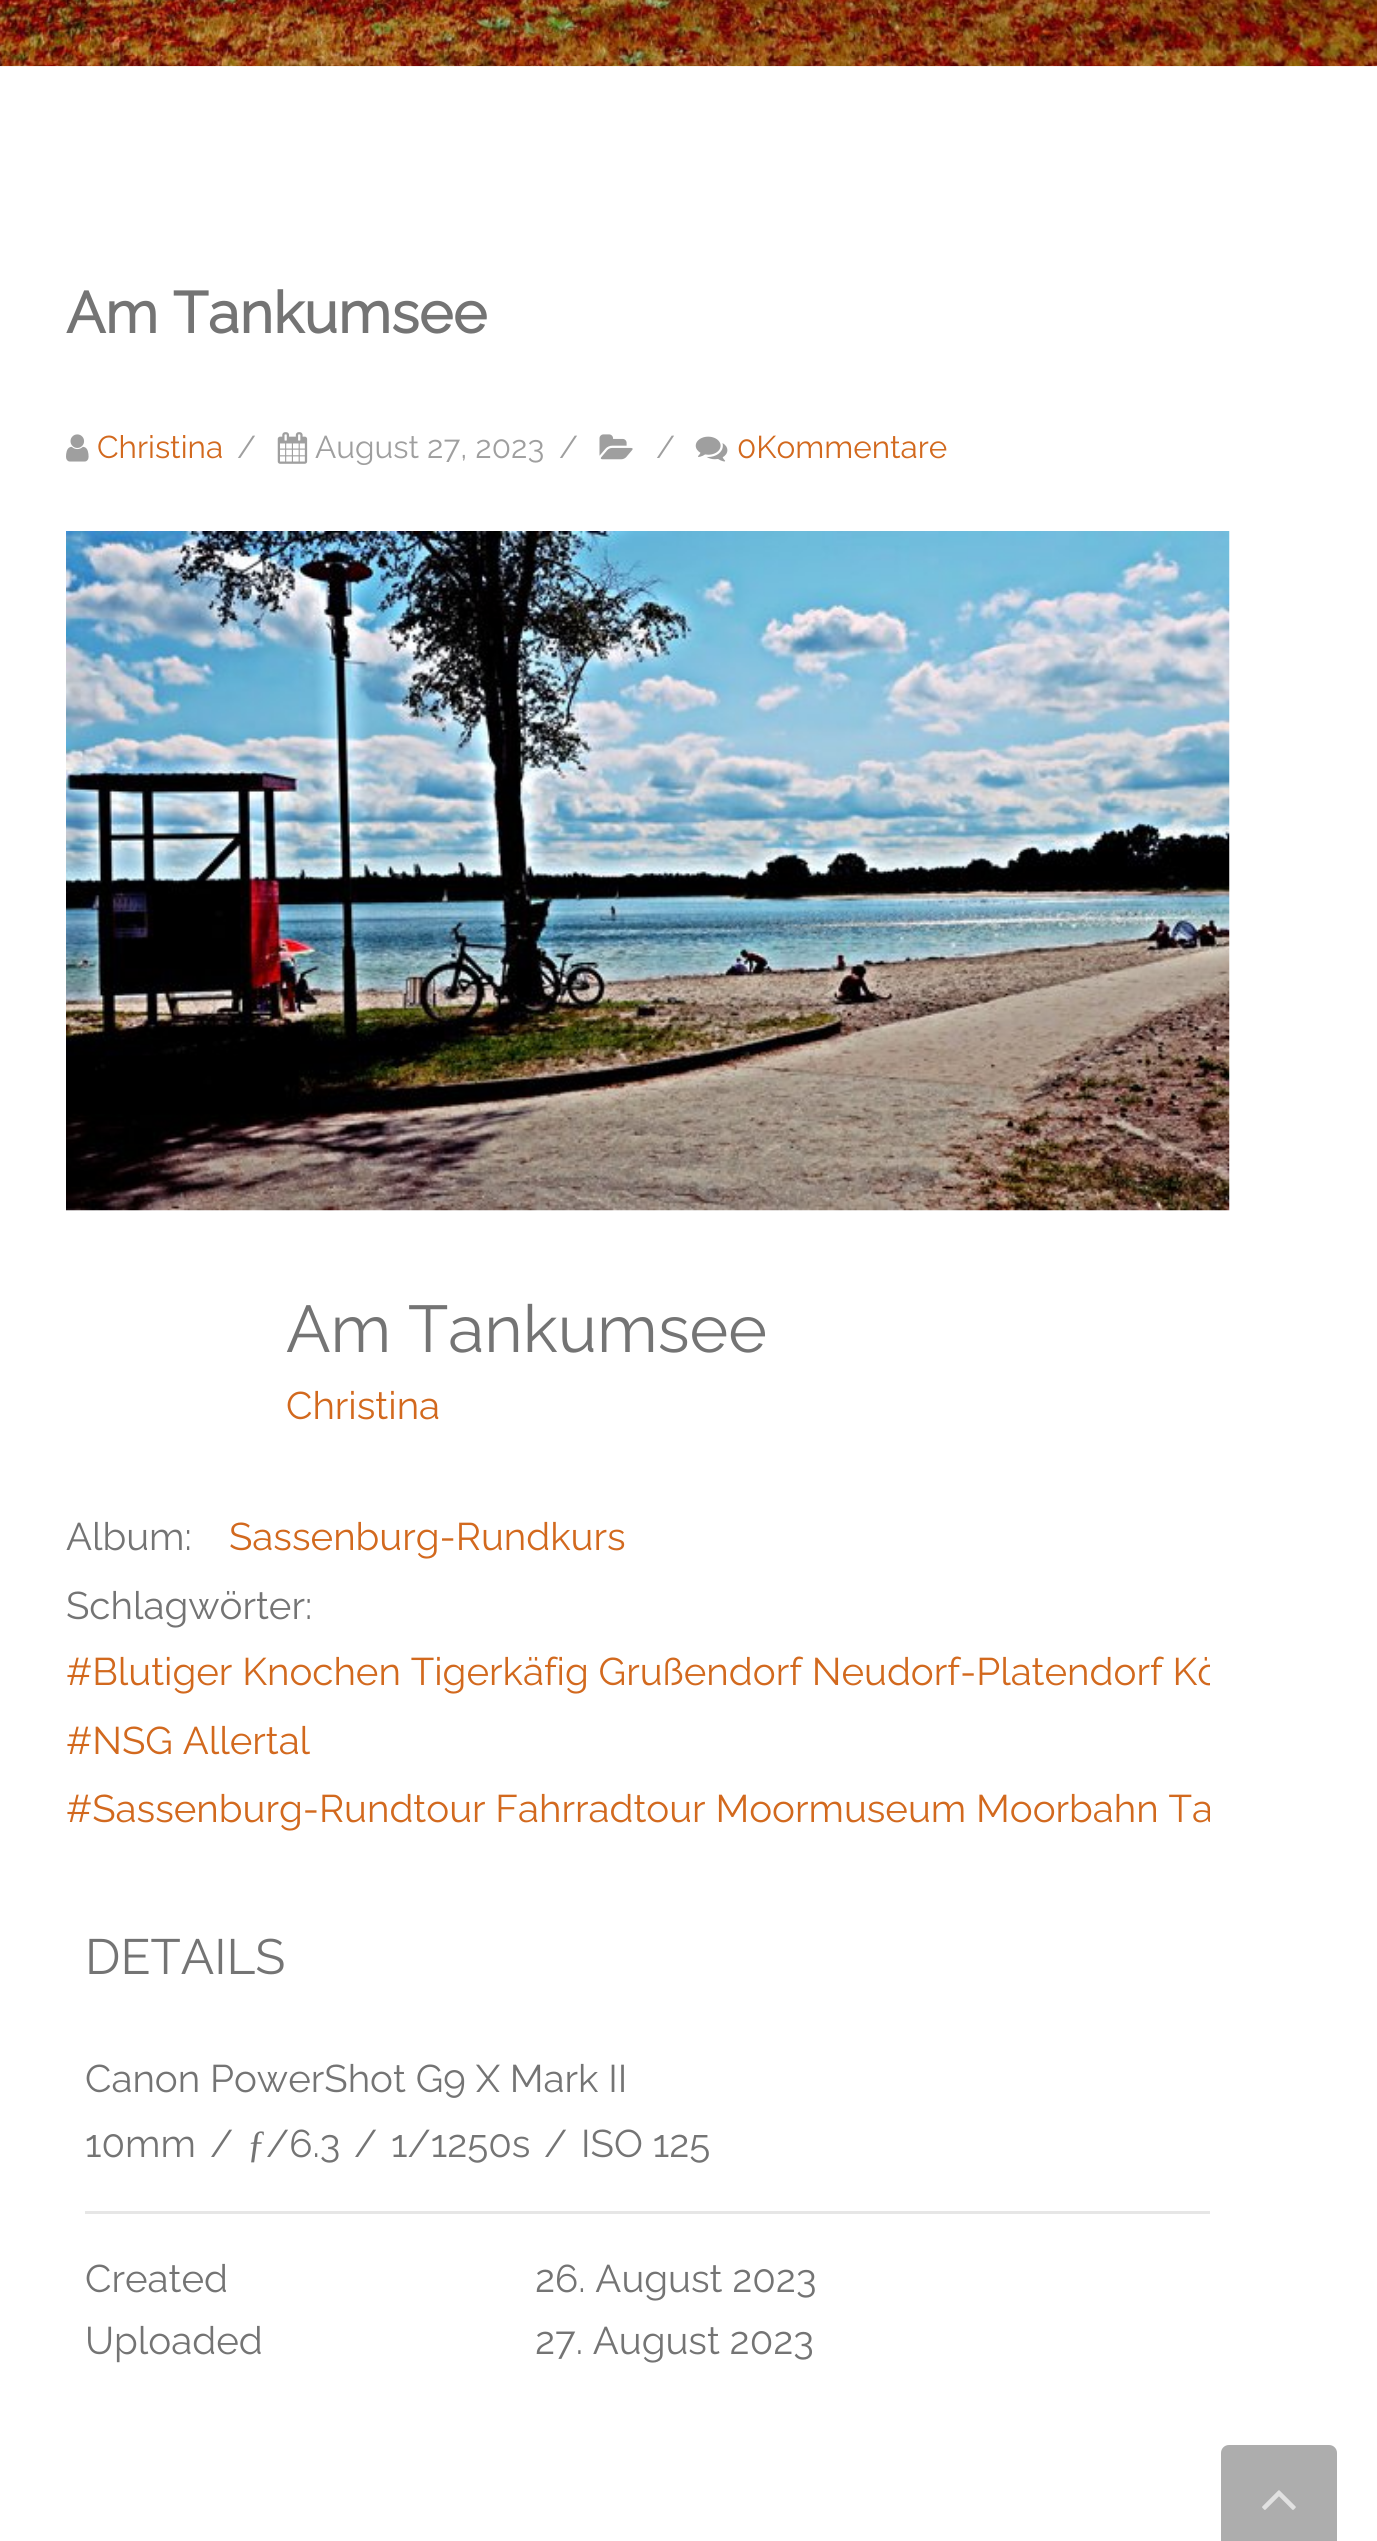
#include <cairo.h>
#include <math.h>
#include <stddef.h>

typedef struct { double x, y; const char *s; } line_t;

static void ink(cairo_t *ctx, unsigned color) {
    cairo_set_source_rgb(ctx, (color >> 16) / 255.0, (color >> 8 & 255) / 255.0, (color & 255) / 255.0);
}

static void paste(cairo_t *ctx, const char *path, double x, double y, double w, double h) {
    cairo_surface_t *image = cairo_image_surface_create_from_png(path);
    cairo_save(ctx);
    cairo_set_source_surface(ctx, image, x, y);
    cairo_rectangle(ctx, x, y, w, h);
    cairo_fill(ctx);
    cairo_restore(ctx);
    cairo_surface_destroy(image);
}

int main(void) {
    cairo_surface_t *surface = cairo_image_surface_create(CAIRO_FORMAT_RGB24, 1377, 2541);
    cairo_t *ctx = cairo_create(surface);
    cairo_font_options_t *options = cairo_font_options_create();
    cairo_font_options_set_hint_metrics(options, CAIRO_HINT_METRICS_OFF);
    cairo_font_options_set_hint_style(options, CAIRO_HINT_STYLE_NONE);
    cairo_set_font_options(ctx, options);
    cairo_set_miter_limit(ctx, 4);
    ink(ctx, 0xFFFFFF);
    cairo_paint(ctx);
    paste(ctx, "media/1.png", 0, 0, 1377, 67);
    cairo_select_font_face(ctx, "Raleway", CAIRO_FONT_SLANT_NORMAL, CAIRO_FONT_WEIGHT_BOLD);
    cairo_set_font_size(ctx, 57.75);
    ink(ctx, 0x747474);
    cairo_move_to(ctx, 66, 333);
    cairo_show_text(ctx, "Am Tankumsee");
    paste(ctx, "media/2.png", 66, 434, 23, 28);
    cairo_select_font_face(ctx, "Raleway", CAIRO_FONT_SLANT_NORMAL, CAIRO_FONT_WEIGHT_NORMAL);
    cairo_set_font_size(ctx, 31.5);
    ink(ctx, 0xD2691E);
    cairo_move_to(ctx, 97, 458);
    cairo_show_text(ctx, "Christina");
    ink(ctx, 0x9F9F9F);
    cairo_move_to(ctx, 237, 458);
    cairo_show_text(ctx, "/");
    paste(ctx, "media/3.png", 277, 432, 31, 32);
    cairo_move_to(ctx, 315, 458);
    cairo_show_text(ctx, "August 27, 2023");
    cairo_move_to(ctx, 559, 458);
    cairo_show_text(ctx, "/");
    paste(ctx, "media/4.png", 599, 434, 34, 26);
    cairo_move_to(ctx, 656, 458);
    cairo_show_text(ctx, "/");
    paste(ctx, "media/5.png", 695, 436, 33, 26);
    ink(ctx, 0xD2691E);
    cairo_move_to(ctx, 737, 458);
    cairo_show_text(ctx, "0Kommentare");
    paste(ctx, "media/6.png", 66, 531, 1164, 680);
    cairo_set_font_size(ctx, 66);
    ink(ctx, 0x747474);
    cairo_move_to(ctx, 286, 1352);
    cairo_show_text(ctx, "Am Tankumsee");
    cairo_set_font_size(ctx, 38.5);
    ink(ctx, 0xD2691E);
    cairo_move_to(ctx, 286, 1419);
    cairo_show_text(ctx, "Christina");
    ink(ctx, 0x747474);
    cairo_move_to(ctx, 66, 1550);
    cairo_show_text(ctx, "Album:");
    ink(ctx, 0xD2691E);
    cairo_move_to(ctx, 229, 1550);
    cairo_show_text(ctx, "Sassenburg-Rundkurs");
    ink(ctx, 0x747474);
    cairo_move_to(ctx, 66, 1619);
    cairo_show_text(ctx, "Schlagwörter:");
    cairo_save(ctx);
    cairo_rectangle(ctx, 66, 1573, 1144, 272);
    cairo_clip(ctx);
    ink(ctx, 0xD2691E);
    cairo_move_to(ctx, 66, 1685);
    cairo_show_text(ctx, "#Blutiger Knochen Tigerkäfig Grußendorf Neudorf-Platendorf Kö");
    cairo_restore(ctx);
    ink(ctx, 0xD2691E);
    cairo_move_to(ctx, 66, 1754);
    cairo_show_text(ctx, "#NSG Allertal");
    cairo_save(ctx);
    cairo_rectangle(ctx, 66, 1573, 1144, 272);
    cairo_clip(ctx);
    cairo_move_to(ctx, 66, 1822);
    cairo_show_text(ctx, "#Sassenburg-Rundtour Fahrradtour Moormuseum Moorbahn Ta");
    cairo_restore(ctx);
    cairo_set_font_size(ctx, 49.5);
    ink(ctx, 0x747474);
    cairo_move_to(ctx, 85, 1974);
    cairo_show_text(ctx, "DETAILS");
    ink(ctx, 0xE6E6E6);
    cairo_rectangle(ctx, 85, 2211, 1125, 3);
    cairo_fill(ctx);
    cairo_set_font_size(ctx, 38.5);
    ink(ctx, 0x747474);
    {
        static const line_t items[] = {
            {85, 2092, "Canon PowerShot G9 X Mark II"},
            {85, 2157, "10mm"},
            {210, 2157, "/"},
        };
        for (size_t i = 0; i < sizeof items / sizeof *items; i++) {
            cairo_move_to(ctx, items[i].x, items[i].y);
            cairo_show_text(ctx, items[i].s);
        }
    }
    cairo_select_font_face(ctx, "Liberation Serif", CAIRO_FONT_SLANT_NORMAL, CAIRO_FONT_WEIGHT_NORMAL);
    cairo_move_to(ctx, 247, 2157);
    cairo_show_text(ctx, "ƒ");
    cairo_select_font_face(ctx, "Raleway", CAIRO_FONT_SLANT_NORMAL, CAIRO_FONT_WEIGHT_NORMAL);
    {
        static const line_t items[] = {
            {266, 2157, "/6.3"},
            {354, 2157, "/"},
            {391, 2157, "1/1250s"},
            {544, 2157, "/"},
            {581, 2157, "ISO 125"},
            {85, 2292, "Created"},
            {535, 2292, "26. August 2023"},
            {85, 2354, "Uploaded"},
            {535, 2354, "27. August 2023"},
        };
        for (size_t i = 0; i < sizeof items / sizeof *items; i++) {
            cairo_move_to(ctx, items[i].x, items[i].y);
            cairo_show_text(ctx, items[i].s);
        }
    }
    ink(ctx, 0xADADAD);
    cairo_new_path(ctx);
    cairo_move_to(ctx, 1229, 2445);
    cairo_line_to(ctx, 1329, 2445);
    cairo_curve_to(ctx, 1333.5, 2445, 1337, 2448.5, 1337, 2453);
    cairo_line_to(ctx, 1337, 2541);
    cairo_line_to(ctx, 1221, 2541);
    cairo_line_to(ctx, 1221, 2453);
    cairo_curve_to(ctx, 1221, 2448.5, 1224.5, 2445, 1229, 2445);
    cairo_close_path(ctx);
    cairo_fill(ctx);
    paste(ctx, "media/7.png", 1262, 2490, 34, 20);
    cairo_surface_write_to_png(surface, "image.png");
    cairo_font_options_destroy(options);
    cairo_destroy(ctx);
    cairo_surface_destroy(surface);
    return 0;
}
